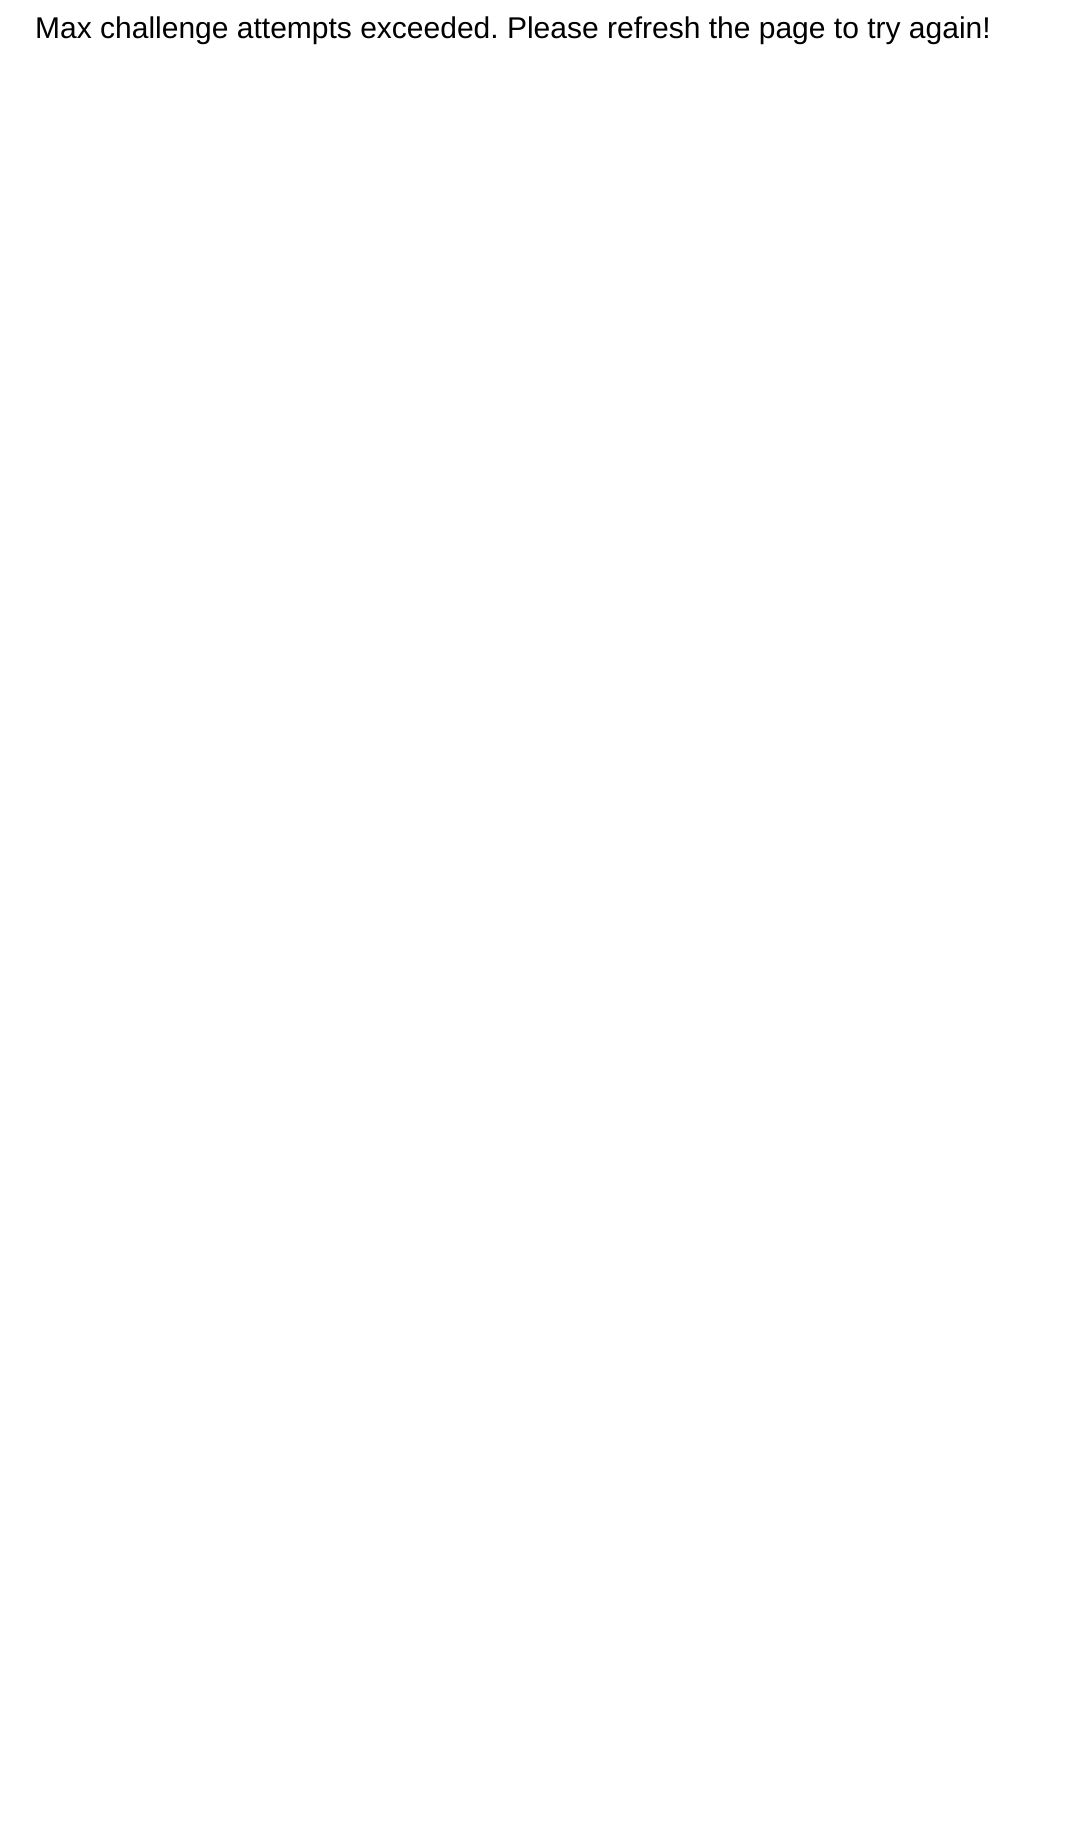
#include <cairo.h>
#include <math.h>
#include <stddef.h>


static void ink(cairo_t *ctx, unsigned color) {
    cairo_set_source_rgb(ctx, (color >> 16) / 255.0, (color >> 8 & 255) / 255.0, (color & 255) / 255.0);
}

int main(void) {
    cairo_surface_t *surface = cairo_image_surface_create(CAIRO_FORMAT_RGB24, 1074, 1828);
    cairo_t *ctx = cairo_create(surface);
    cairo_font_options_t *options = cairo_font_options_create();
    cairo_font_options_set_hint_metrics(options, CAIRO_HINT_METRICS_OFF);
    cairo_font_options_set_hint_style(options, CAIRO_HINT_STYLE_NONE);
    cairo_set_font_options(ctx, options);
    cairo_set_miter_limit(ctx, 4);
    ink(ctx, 0xFFFFFF);
    cairo_paint(ctx);
    cairo_select_font_face(ctx, "Liberation Sans", CAIRO_FONT_SLANT_NORMAL, CAIRO_FONT_WEIGHT_NORMAL);
    cairo_set_font_size(ctx, 30);
    ink(ctx, 0x000000);
    cairo_move_to(ctx, 35, 38);
    cairo_show_text(ctx, "Max challenge attempts exceeded. Please refresh the page to try again!");
    cairo_surface_write_to_png(surface, "image.png");
    cairo_font_options_destroy(options);
    cairo_destroy(ctx);
    cairo_surface_destroy(surface);
    return 0;
}
